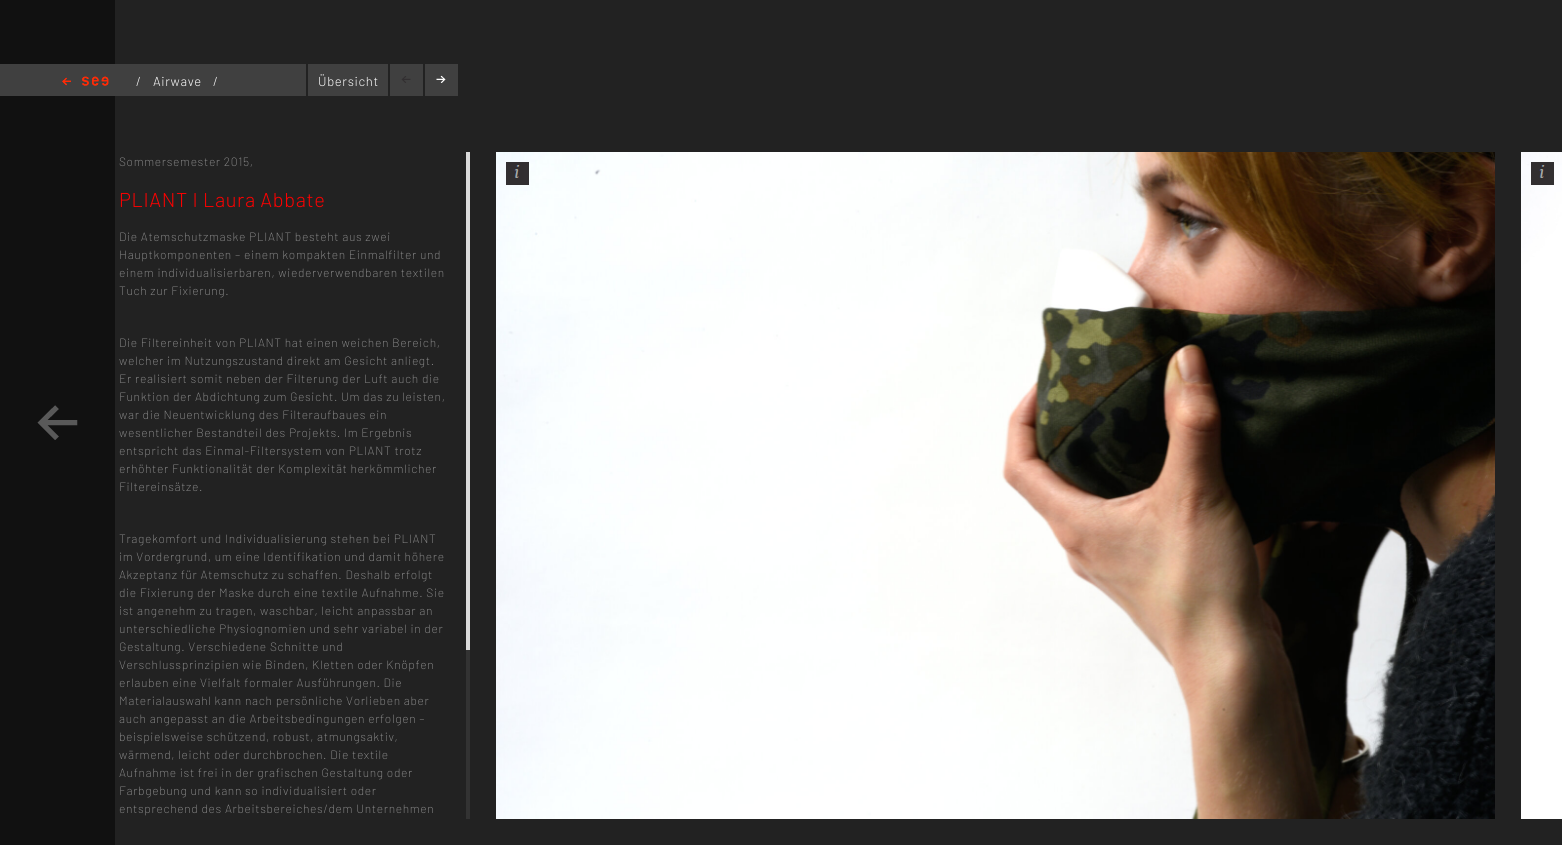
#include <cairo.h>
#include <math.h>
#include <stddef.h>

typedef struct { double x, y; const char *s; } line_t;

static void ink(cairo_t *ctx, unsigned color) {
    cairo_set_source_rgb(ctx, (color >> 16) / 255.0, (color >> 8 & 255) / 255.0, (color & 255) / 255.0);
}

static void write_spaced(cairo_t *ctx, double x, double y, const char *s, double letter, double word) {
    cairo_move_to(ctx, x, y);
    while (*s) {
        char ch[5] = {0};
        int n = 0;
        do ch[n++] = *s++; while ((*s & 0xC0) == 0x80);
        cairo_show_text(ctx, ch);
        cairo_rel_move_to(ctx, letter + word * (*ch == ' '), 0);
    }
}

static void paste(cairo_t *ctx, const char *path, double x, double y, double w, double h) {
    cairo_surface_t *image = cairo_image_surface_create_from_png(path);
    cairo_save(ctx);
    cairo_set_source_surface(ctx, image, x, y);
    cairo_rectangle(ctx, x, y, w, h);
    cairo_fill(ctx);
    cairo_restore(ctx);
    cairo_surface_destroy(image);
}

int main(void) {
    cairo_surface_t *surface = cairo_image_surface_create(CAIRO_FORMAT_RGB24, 1562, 845);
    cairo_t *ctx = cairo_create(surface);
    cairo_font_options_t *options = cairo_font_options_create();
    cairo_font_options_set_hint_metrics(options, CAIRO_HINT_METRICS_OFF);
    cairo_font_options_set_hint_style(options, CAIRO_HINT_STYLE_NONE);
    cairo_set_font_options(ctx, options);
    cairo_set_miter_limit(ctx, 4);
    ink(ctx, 0x222222);
    cairo_paint(ctx);
    ink(ctx, 0x111111);
    cairo_rectangle(ctx, 0, 0, 115, 845);
    cairo_fill(ctx);
    paste(ctx, "media/1.png", 37, 405, 41, 35);
    ink(ctx, 0x404040);
    cairo_rectangle(ctx, 0, 64, 306, 32);
    cairo_fill(ctx);
    paste(ctx, "media/2.png", 62, 76, 47, 10);
    cairo_select_font_face(ctx, "Barlow Light", CAIRO_FONT_SLANT_NORMAL, CAIRO_FONT_WEIGHT_NORMAL);
    cairo_set_font_size(ctx, 13);
    ink(ctx, 0xFFFFFF);
    {
        static const line_t items[] = {
            {136, 86, "/"},
            {153, 86, "Airwave"},
            {213, 86, "/"},
        };
        for (size_t i = 0; i < sizeof items / sizeof *items; i++) {
            write_spaced(ctx, items[i].x, items[i].y, items[i].s, 0.65, 0);
        }
    }
    ink(ctx, 0x404040);
    cairo_rectangle(ctx, 308, 64, 80, 32);
    cairo_fill(ctx);
    ink(ctx, 0xFFFFFF);
    write_spaced(ctx, 318, 86, "Übersicht", 0.65, 0);
    ink(ctx, 0x404040);
    cairo_rectangle(ctx, 390, 64, 33, 32);
    cairo_fill(ctx);
    paste(ctx, "media/3.png", 401, 76, 10, 7);
    cairo_rectangle(ctx, 425, 64, 33, 32);
    cairo_fill(ctx);
    paste(ctx, "media/4.png", 436, 75, 10, 8);
    cairo_select_font_face(ctx, "Barlow ExtraLight", CAIRO_FONT_SLANT_NORMAL, CAIRO_FONT_WEIGHT_NORMAL);
    cairo_set_font_size(ctx, 12);
    ink(ctx, 0x999999);
    write_spaced(ctx, 119, 166, "Sommersemester 2015,", 0.65, 0);
    cairo_select_font_face(ctx, "Barlow Light", CAIRO_FONT_SLANT_NORMAL, CAIRO_FONT_WEIGHT_NORMAL);
    cairo_set_font_size(ctx, 20);
    ink(ctx, 0xFF0000);
    write_spaced(ctx, 119, 207, "PLIANT I Laura Abbate", 0.65, 0);
    cairo_select_font_face(ctx, "Barlow ExtraLight", CAIRO_FONT_SLANT_NORMAL, CAIRO_FONT_WEIGHT_NORMAL);
    cairo_set_font_size(ctx, 12);
    ink(ctx, 0x999999);
    {
        static const line_t items[] = {
            {119, 241, "Die Atemschutzmaske PLIANT besteht aus zwei"},
            {119, 259, "Hauptkomponenten – einem kompakten Einmalfilter und"},
            {119, 277, "einem individualisierbaren, wiederverwendbaren textilen"},
            {119, 295, "Tuch zur Fixierung."},
            {119, 347, "Die Filtereinheit von PLIANT hat einen weichen Bereich,"},
            {119, 365, "welcher im Nutzungszustand direkt am Gesicht anliegt."},
            {119, 383, "Er realisiert somit neben der Filterung der Luft auch die"},
            {119, 401, "Funktion der Abdichtung zum Gesicht. Um das zu leisten,"},
            {119, 419, "war die Neuentwicklung des Filteraufbaues ein"},
            {119, 437, "wesentlicher Bestandteil des Projekts. Im Ergebnis"},
            {119, 455, "entspricht das Einmal-Filtersystem von PLIANT trotz"},
            {119, 473, "erhöhter Funktionalität der Komplexität herkömmlicher"},
            {119, 491, "Filtereinsätze."},
            {119, 543, "Tragekomfort und Individualisierung stehen bei PLIANT"},
            {119, 561, "im Vordergrund, um eine Identifikation und damit höhere"},
            {119, 579, "Akzeptanz für Atemschutz zu schaffen. Deshalb erfolgt"},
            {119, 597, "die Fixierung der Maske durch eine textile Aufnahme. Sie"},
            {119, 615, "ist angenehm zu tragen, waschbar, leicht anpassbar an"},
            {119, 633, "unterschiedliche Physiognomien und sehr variabel in der"},
            {119, 651, "Gestaltung. Verschiedene Schnitte und"},
            {119, 669, "Verschlussprinzipien wie Binden, Kletten oder Knöpfen"},
            {119, 687, "erlauben eine Vielfalt formaler Ausführungen. Die"},
            {119, 705, "Materialauswahl kann nach persönliche Vorlieben aber"},
            {119, 723, "auch angepasst an die Arbeitsbedingungen erfolgen –"},
            {119, 741, "beispielsweise schützend, robust, atmungsaktiv,"},
            {119, 759, "wärmend, leicht oder durchbrochen. Die textile"},
            {119, 777, "Aufnahme ist frei in der grafischen Gestaltung oder"},
            {119, 795, "Farbgebung und kann so individualisiert oder"},
            {119, 813, "entsprechend des Arbeitsbereiches/dem Unternehmen"},
        };
        for (size_t i = 0; i < sizeof items / sizeof *items; i++) {
            write_spaced(ctx, items[i].x, items[i].y, items[i].s, 0.65, 0);
        }
    }
    ink(ctx, 0x333333);
    cairo_rectangle(ctx, 466, 650, 4, 169);
    cairo_fill(ctx);
    ink(ctx, 0xDADADA);
    cairo_rectangle(ctx, 466, 152, 4, 498);
    cairo_fill(ctx);
    paste(ctx, "media/5.png", 496, 152, 999, 667);
    paste(ctx, "media/6.png", 506, 162, 23, 23);
    paste(ctx, "media/7.png", 1521, 152, 41, 667);
    paste(ctx, "media/6.png", 1531, 162, 23, 23);
    cairo_surface_write_to_png(surface, "image.png");
    cairo_font_options_destroy(options);
    cairo_destroy(ctx);
    cairo_surface_destroy(surface);
    return 0;
}
